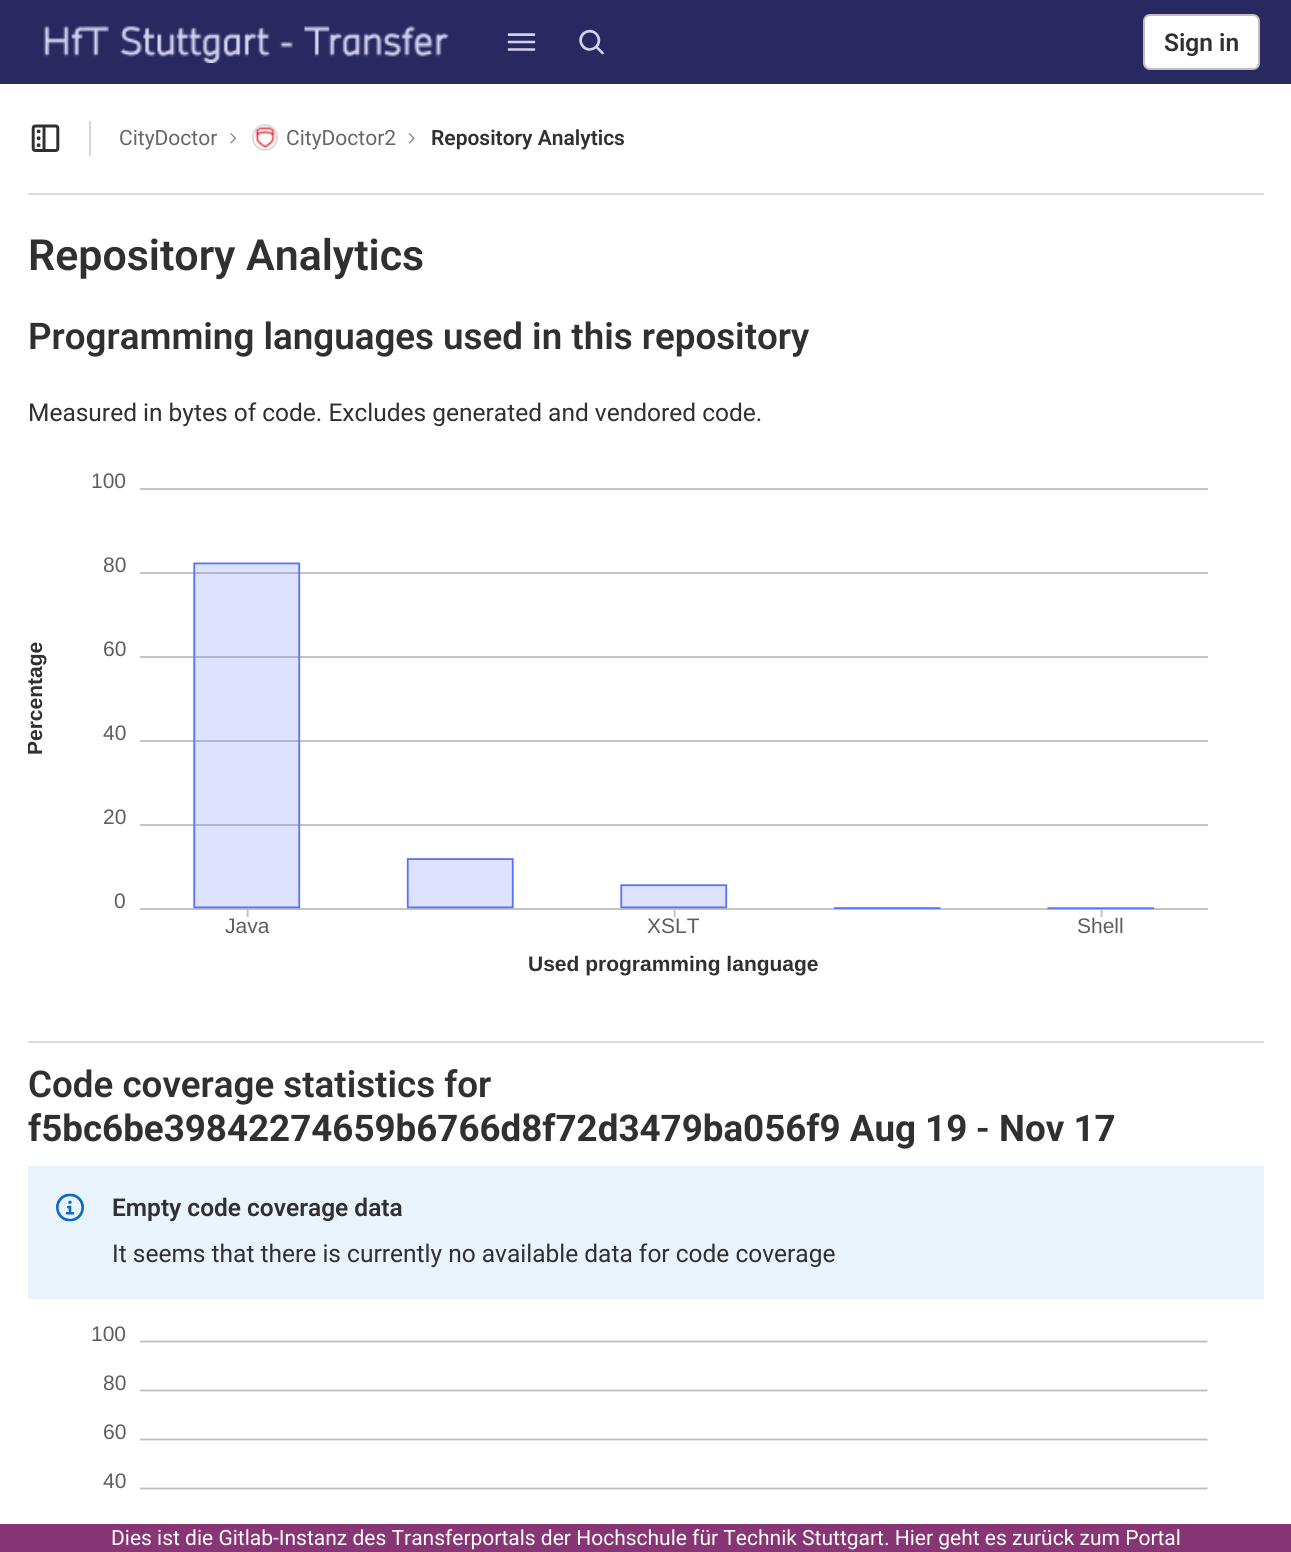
#include <cairo.h>
#include <math.h>
#include <stddef.h>

typedef struct { double x, y; const char *s; } line_t;

static void ink(cairo_t *ctx, unsigned color) {
    cairo_set_source_rgb(ctx, (color >> 16) / 255.0, (color >> 8 & 255) / 255.0, (color & 255) / 255.0);
}

static void round_path(cairo_t *ctx, double x, double y, double w, double h, double r) {
    cairo_new_sub_path(ctx);
    cairo_arc(ctx, x + w - r, y + h - r, r, 0, M_PI / 2);
    cairo_arc(ctx, x + r, y + h - r, r, M_PI / 2, M_PI);
    cairo_arc(ctx, x + r, y + r, r, M_PI, 1.5 * M_PI);
    cairo_arc(ctx, x + w - r, y + r, r, 1.5 * M_PI, 2 * M_PI);
    cairo_close_path(ctx);
}

static void paste(cairo_t *ctx, const char *path, double x, double y, double w, double h) {
    cairo_surface_t *image = cairo_image_surface_create_from_png(path);
    cairo_save(ctx);
    cairo_set_source_surface(ctx, image, x, y);
    cairo_rectangle(ctx, x, y, w, h);
    cairo_fill(ctx);
    cairo_restore(ctx);
    cairo_surface_destroy(image);
}

int main(void) {
    cairo_surface_t *surface = cairo_image_surface_create(CAIRO_FORMAT_RGB24, 1291, 1552);
    cairo_t *ctx = cairo_create(surface);
    cairo_font_options_t *options = cairo_font_options_create();
    cairo_font_options_set_hint_metrics(options, CAIRO_HINT_METRICS_OFF);
    cairo_font_options_set_hint_style(options, CAIRO_HINT_STYLE_NONE);
    cairo_set_font_options(ctx, options);
    cairo_set_miter_limit(ctx, 4);
    ink(ctx, 0xFFFFFF);
    cairo_paint(ctx);
    ink(ctx, 0x292961);
    cairo_rectangle(ctx, 0, 0, 1291, 84);
    cairo_fill(ctx);
    paste(ctx, "media/1.png", 43, 25, 406, 38);
    paste(ctx, "media/2.png", 507, 33, 29, 18);
    paste(ctx, "media/3.png", 579, 29, 25, 26);
    ink(ctx, 0xFFFFFF);
    round_path(ctx, 1144, 15, 115, 54, 6);
    cairo_fill_preserve(ctx);
    ink(ctx, 0xBFBFBF);
    cairo_stroke(ctx);
    cairo_select_font_face(ctx, "Roboto SemiBold", CAIRO_FONT_SLANT_NORMAL, CAIRO_FONT_WEIGHT_NORMAL);
    cairo_set_font_size(ctx, 24.5);
    ink(ctx, 0x303030);
    cairo_move_to(ctx, 1164, 51);
    cairo_show_text(ctx, "Sign in");
    ink(ctx, 0xDBDBDB);
    cairo_rectangle(ctx, 28, 193, 1236, 2);
    cairo_fill(ctx);
    paste(ctx, "media/4.png", 31, 124, 29, 28);
    ink(ctx, 0xD6D6D6);
    cairo_rectangle(ctx, 89, 121, 2, 35);
    cairo_fill(ctx);
    cairo_select_font_face(ctx, "Roboto", CAIRO_FONT_SLANT_NORMAL, CAIRO_FONT_WEIGHT_NORMAL);
    cairo_set_font_size(ctx, 21);
    ink(ctx, 0x666666);
    cairo_move_to(ctx, 119, 145);
    cairo_show_text(ctx, "CityDoctor");
    paste(ctx, "media/5.png", 230, 133, 6, 11);
    round_path(ctx, 253, 125, 24, 25, 12);
    ink(ctx, 0xDBDBDB);
    cairo_stroke(ctx);
    paste(ctx, "media/6.png", 255, 126, 21, 23);
    ink(ctx, 0x666666);
    cairo_move_to(ctx, 286, 145);
    cairo_show_text(ctx, "CityDoctor2");
    paste(ctx, "media/7.png", 408, 133, 7, 11);
    cairo_select_font_face(ctx, "Roboto SemiBold", CAIRO_FONT_SLANT_NORMAL, CAIRO_FONT_WEIGHT_NORMAL);
    ink(ctx, 0x303030);
    cairo_move_to(ctx, 431, 145);
    cairo_show_text(ctx, "Repository Analytics");
    cairo_set_font_size(ctx, 42.9);
    cairo_move_to(ctx, 28, 270);
    cairo_show_text(ctx, "Repository Analytics");
    cairo_set_font_size(ctx, 36.75);
    cairo_move_to(ctx, 28, 349);
    cairo_show_text(ctx, "Programming languages used in this repository");
    cairo_select_font_face(ctx, "Roboto", CAIRO_FONT_SLANT_NORMAL, CAIRO_FONT_WEIGHT_NORMAL);
    cairo_set_font_size(ctx, 24.5);
    cairo_move_to(ctx, 28, 421);
    cairo_show_text(ctx, "Measured in bytes of code. Excludes generated and vendored code.");
    paste(ctx, "media/8.png", 140, 488, 1068, 429);
    cairo_select_font_face(ctx, "Liberation Sans", CAIRO_FONT_SLANT_NORMAL, CAIRO_FONT_WEIGHT_NORMAL);
    cairo_set_font_size(ctx, 21);
    ink(ctx, 0x5E5E5E);
    cairo_move_to(ctx, 91, 488);
    cairo_show_text(ctx, "100");
    cairo_move_to(ctx, 103, 572);
    cairo_show_text(ctx, "80");
    cairo_save(ctx);
    cairo_rectangle(ctx, 28, 460, 1236, 525);
    cairo_clip(ctx);
    cairo_select_font_face(ctx, "Liberation Sans", CAIRO_FONT_SLANT_NORMAL, CAIRO_FONT_WEIGHT_BOLD);
    ink(ctx, 0x303030);
    cairo_save(ctx);
    cairo_translate(ctx, 42, 755);
    cairo_rotate(ctx, -90 * M_PI / 180);
    cairo_move_to(ctx, 0, 0);
    cairo_show_text(ctx, "Percentage");
    cairo_restore(ctx);
    cairo_restore(ctx);
    {
        static const line_t items[] = {
            {103, 656, "60"},
            {103, 740, "40"},
            {103, 824, "20"},
            {114, 908, "0"},
            {225, 933, "Java"},
            {647, 933, "XSLT"},
            {1077, 933, "Shell"},
        };
        for (size_t i = 0; i < sizeof items / sizeof *items; i++) {
            cairo_move_to(ctx, items[i].x, items[i].y);
            cairo_show_text(ctx, items[i].s);
        }
    }
    cairo_select_font_face(ctx, "Liberation Sans", CAIRO_FONT_SLANT_NORMAL, CAIRO_FONT_WEIGHT_BOLD);
    ink(ctx, 0x303030);
    cairo_move_to(ctx, 528, 971);
    cairo_show_text(ctx, "Used programming language");
    ink(ctx, 0xDBDBDB);
    cairo_rectangle(ctx, 28, 1041, 1236, 2);
    cairo_fill(ctx);
    cairo_select_font_face(ctx, "Roboto SemiBold", CAIRO_FONT_SLANT_NORMAL, CAIRO_FONT_WEIGHT_NORMAL);
    cairo_set_font_size(ctx, 36.75);
    ink(ctx, 0x303030);
    cairo_move_to(ctx, 28, 1097);
    cairo_show_text(ctx, "Code coverage statistics for");
    cairo_select_font_face(ctx, "Roboto", CAIRO_FONT_SLANT_NORMAL, CAIRO_FONT_WEIGHT_BOLD);
    cairo_move_to(ctx, 28, 1141);
    cairo_show_text(ctx, "f5bc6be39842274659b6766d8f72d3479ba056f9 Aug 19");
    cairo_select_font_face(ctx, "Roboto SemiBold", CAIRO_FONT_SLANT_NORMAL, CAIRO_FONT_WEIGHT_NORMAL);
    cairo_move_to(ctx, 976, 1141);
    cairo_show_text(ctx, "-");
    cairo_select_font_face(ctx, "Roboto", CAIRO_FONT_SLANT_NORMAL, CAIRO_FONT_WEIGHT_BOLD);
    cairo_move_to(ctx, 999, 1141);
    cairo_show_text(ctx, "Nov 17");
    ink(ctx, 0xE9F3FC);
    cairo_rectangle(ctx, 28, 1166, 1236, 133);
    cairo_fill(ctx);
    paste(ctx, "media/9.png", 56, 1193, 28, 29);
    cairo_select_font_face(ctx, "Roboto SemiBold", CAIRO_FONT_SLANT_NORMAL, CAIRO_FONT_WEIGHT_NORMAL);
    cairo_set_font_size(ctx, 24.5);
    ink(ctx, 0x303030);
    cairo_move_to(ctx, 112, 1216);
    cairo_show_text(ctx, "Empty code coverage data");
    cairo_select_font_face(ctx, "Roboto", CAIRO_FONT_SLANT_NORMAL, CAIRO_FONT_WEIGHT_NORMAL);
    cairo_move_to(ctx, 112, 1262);
    cairo_show_text(ctx, "It seems that there is currently no available data for code coverage");
    cairo_new_path(ctx);
    cairo_move_to(ctx, 140, 1488.5);
    cairo_line_to(ctx, 1207.5, 1488.5);
    ink(ctx, 0xBFBFBF);
    cairo_set_line_width(ctx, 1.8);
    cairo_stroke(ctx);
    cairo_new_path(ctx);
    cairo_move_to(ctx, 140, 1439.5);
    cairo_line_to(ctx, 1207.5, 1439.5);
    cairo_stroke(ctx);
    cairo_new_path(ctx);
    cairo_move_to(ctx, 140, 1390.5);
    cairo_line_to(ctx, 1207.5, 1390.5);
    cairo_stroke(ctx);
    cairo_new_path(ctx);
    cairo_move_to(ctx, 140, 1341.5);
    cairo_line_to(ctx, 1207.5, 1341.5);
    cairo_stroke(ctx);
    cairo_select_font_face(ctx, "Liberation Sans", CAIRO_FONT_SLANT_NORMAL, CAIRO_FONT_WEIGHT_NORMAL);
    cairo_set_font_size(ctx, 21);
    ink(ctx, 0x5E5E5E);
    {
        static const line_t items[] = {
            {91, 1341, "100"},
            {103, 1390, "80"},
            {103, 1439, "60"},
            {103, 1488, "40"},
        };
        for (size_t i = 0; i < sizeof items / sizeof *items; i++) {
            cairo_move_to(ctx, items[i].x, items[i].y);
            cairo_show_text(ctx, items[i].s);
        }
    }
    ink(ctx, 0x873575);
    cairo_rectangle(ctx, 0, 1524, 1291, 28);
    cairo_fill(ctx);
    cairo_select_font_face(ctx, "Roboto", CAIRO_FONT_SLANT_NORMAL, CAIRO_FONT_WEIGHT_NORMAL);
    ink(ctx, 0xFFFFFF);
    cairo_move_to(ctx, 111, 1545);
    cairo_show_text(ctx, "Dies ist die Gitlab-Instanz des Transferportals der Hochschule für Technik Stuttgart. Hier geht es zurück zum Portal");
    cairo_surface_write_to_png(surface, "image.png");
    cairo_font_options_destroy(options);
    cairo_destroy(ctx);
    cairo_surface_destroy(surface);
    return 0;
}
